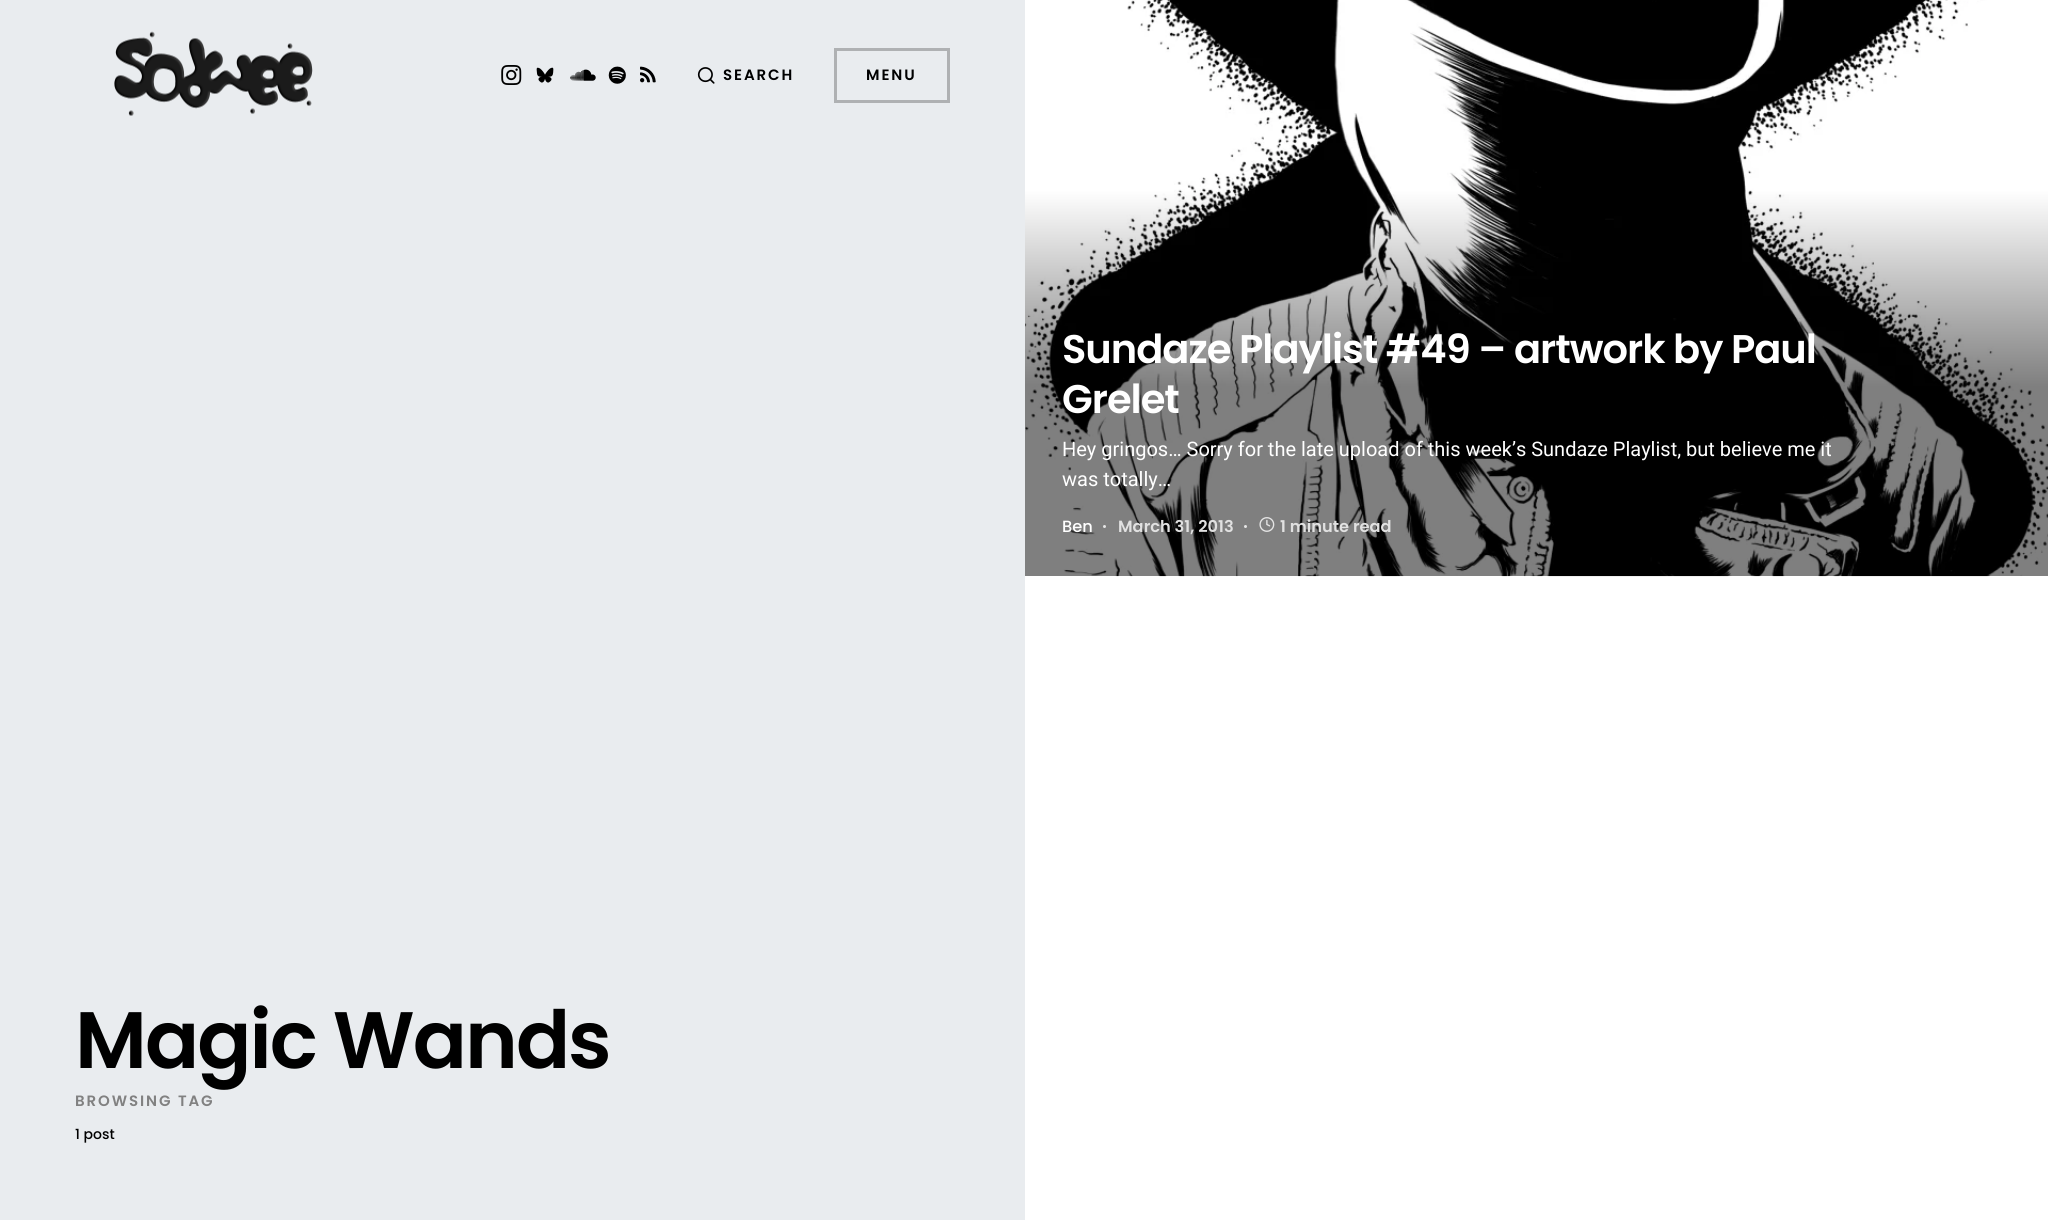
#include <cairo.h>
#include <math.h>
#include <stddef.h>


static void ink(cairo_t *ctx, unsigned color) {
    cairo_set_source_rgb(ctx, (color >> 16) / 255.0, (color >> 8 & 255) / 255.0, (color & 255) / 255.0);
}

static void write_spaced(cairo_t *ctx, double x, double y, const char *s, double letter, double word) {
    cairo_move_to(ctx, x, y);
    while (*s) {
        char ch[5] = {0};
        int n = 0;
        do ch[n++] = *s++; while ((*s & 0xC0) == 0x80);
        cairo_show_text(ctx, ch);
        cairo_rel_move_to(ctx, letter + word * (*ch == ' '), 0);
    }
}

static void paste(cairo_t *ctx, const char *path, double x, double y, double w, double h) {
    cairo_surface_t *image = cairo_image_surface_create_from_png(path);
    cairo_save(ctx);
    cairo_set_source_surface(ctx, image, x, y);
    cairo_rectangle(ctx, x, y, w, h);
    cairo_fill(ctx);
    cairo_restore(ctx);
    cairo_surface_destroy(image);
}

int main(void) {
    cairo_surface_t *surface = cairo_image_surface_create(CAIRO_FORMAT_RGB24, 2048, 1220);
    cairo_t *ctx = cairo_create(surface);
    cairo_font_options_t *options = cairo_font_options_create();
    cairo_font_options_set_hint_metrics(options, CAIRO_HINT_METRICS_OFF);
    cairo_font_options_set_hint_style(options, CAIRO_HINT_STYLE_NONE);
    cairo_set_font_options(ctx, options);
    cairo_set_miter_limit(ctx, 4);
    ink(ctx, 0xFFFFFF);
    cairo_paint(ctx);
    ink(ctx, 0xE9ECEF);
    cairo_rectangle(ctx, 0, 0, 1025, 1220);
    cairo_fill(ctx);
    paste(ctx, "media/1.png", 114, 31, 199, 85);
    paste(ctx, "media/2.png", 501, 65, 21, 20);
    paste(ctx, "media/3.png", 536, 67, 18, 16);
    paste(ctx, "media/4.png", 570, 69, 26, 12);
    paste(ctx, "media/5.png", 608, 66, 18, 18);
    paste(ctx, "media/6.png", 640, 66, 16, 17);
    paste(ctx, "media/7.png", 697, 67, 18, 17);
    cairo_select_font_face(ctx, "Poppins SemiBold", CAIRO_FONT_SLANT_NORMAL, CAIRO_FONT_WEIGHT_NORMAL);
    cairo_set_font_size(ctx, 15);
    ink(ctx, 0x000000);
    write_spaced(ctx, 723, 80, "SEARCH", 1.9, 0);
    cairo_rectangle(ctx, 835.5, 49.5, 113, 52);
    ink(ctx, 0xAFB1B3);
    cairo_set_line_width(ctx, 3);
    cairo_stroke(ctx);
    ink(ctx, 0x000000);
    write_spaced(ctx, 866, 80, "MENU", 1.9, 0);
    cairo_set_font_size(ctx, 80);
    write_spaced(ctx, 75, 1068, "Magic Wands", -2, 0);
    cairo_set_font_size(ctx, 15);
    ink(ctx, 0x818181);
    write_spaced(ctx, 75, 1106, "BROWSING TAG", 1.9, 0);
    cairo_select_font_face(ctx, "Poppins Medium", CAIRO_FONT_SLANT_NORMAL, CAIRO_FONT_WEIGHT_NORMAL);
    cairo_set_font_size(ctx, 14);
    ink(ctx, 0x000000);
    cairo_move_to(ctx, 75, 1139);
    cairo_show_text(ctx, "1 post");
    paste(ctx, "media/8.png", 1025, 0, 1023, 577);
    cairo_select_font_face(ctx, "Poppins SemiBold", CAIRO_FONT_SLANT_NORMAL, CAIRO_FONT_WEIGHT_NORMAL);
    cairo_set_font_size(ctx, 40);
    ink(ctx, 0xFFFFFF);
    write_spaced(ctx, 1062, 363, "Sundaze Playlist #49 – artwork by Paul", -1, 0);
    write_spaced(ctx, 1062, 413, "Grelet", -1, 0);
    cairo_select_font_face(ctx, "Roboto", CAIRO_FONT_SLANT_NORMAL, CAIRO_FONT_WEIGHT_NORMAL);
    cairo_set_font_size(ctx, 20);
    cairo_move_to(ctx, 1062, 456);
    cairo_show_text(ctx, "Hey gringos… Sorry for the late upload of this week’s Sundaze Playlist, but believe me it");
    cairo_move_to(ctx, 1062, 486);
    cairo_show_text(ctx, "was totally…");
    cairo_select_font_face(ctx, "Poppins Medium", CAIRO_FONT_SLANT_NORMAL, CAIRO_FONT_WEIGHT_NORMAL);
    cairo_set_font_size(ctx, 16.25);
    cairo_move_to(ctx, 1062, 532);
    cairo_show_text(ctx, "Ben");
    ink(ctx, 0xE5E5E5);
    cairo_new_path(ctx);
    cairo_arc(ctx, 1104.5, 526.5, 1.5, 0, 2 * M_PI);
    cairo_fill(ctx);
    cairo_select_font_face(ctx, "Poppins SemiBold", CAIRO_FONT_SLANT_NORMAL, CAIRO_FONT_WEIGHT_NORMAL);
    ink(ctx, 0xE1E1E1);
    cairo_move_to(ctx, 1118, 532);
    cairo_show_text(ctx, "March 31, 2013");
    ink(ctx, 0xE5E5E5);
    cairo_new_path(ctx);
    cairo_arc(ctx, 1245.5, 526.5, 1.5, 0, 2 * M_PI);
    cairo_fill(ctx);
    paste(ctx, "media/9.png", 1259, 517, 16, 15);
    ink(ctx, 0xE1E1E1);
    cairo_move_to(ctx, 1280, 532);
    cairo_show_text(ctx, "1 minute read");
    cairo_surface_write_to_png(surface, "image.png");
    cairo_font_options_destroy(options);
    cairo_destroy(ctx);
    cairo_surface_destroy(surface);
    return 0;
}
